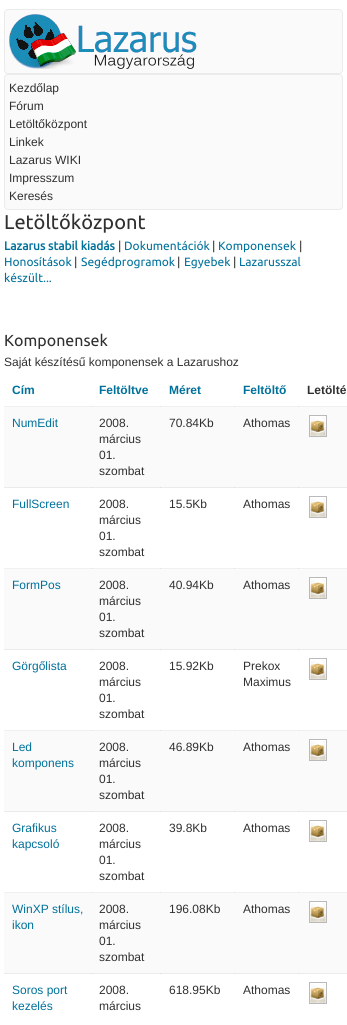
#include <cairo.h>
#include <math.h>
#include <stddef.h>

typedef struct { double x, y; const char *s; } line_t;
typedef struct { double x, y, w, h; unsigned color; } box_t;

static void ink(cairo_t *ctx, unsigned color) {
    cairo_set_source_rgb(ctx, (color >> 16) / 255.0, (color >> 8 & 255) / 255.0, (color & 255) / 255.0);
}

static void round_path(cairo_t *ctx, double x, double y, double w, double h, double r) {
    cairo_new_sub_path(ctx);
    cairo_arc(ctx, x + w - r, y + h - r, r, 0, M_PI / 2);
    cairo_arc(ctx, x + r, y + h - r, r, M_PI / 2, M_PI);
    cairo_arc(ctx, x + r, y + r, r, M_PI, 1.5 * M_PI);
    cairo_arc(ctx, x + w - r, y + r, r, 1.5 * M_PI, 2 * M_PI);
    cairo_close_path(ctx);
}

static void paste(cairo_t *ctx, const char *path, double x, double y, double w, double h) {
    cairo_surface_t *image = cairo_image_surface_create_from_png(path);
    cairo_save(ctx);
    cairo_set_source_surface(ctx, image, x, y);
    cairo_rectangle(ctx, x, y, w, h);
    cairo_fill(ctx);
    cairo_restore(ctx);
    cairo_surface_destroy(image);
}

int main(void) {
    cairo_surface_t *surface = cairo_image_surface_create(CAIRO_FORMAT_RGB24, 347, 1025);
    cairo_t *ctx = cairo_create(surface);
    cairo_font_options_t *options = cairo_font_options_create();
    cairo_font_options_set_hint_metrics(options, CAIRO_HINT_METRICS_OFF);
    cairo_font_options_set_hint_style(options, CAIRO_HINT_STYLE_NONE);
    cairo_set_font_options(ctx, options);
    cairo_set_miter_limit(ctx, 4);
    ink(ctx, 0xFFFFFF);
    cairo_paint(ctx);
    {
        static const box_t items[] = {
            {4, 406, 343, 1, 0xF0F0F0},
            {91, 406, 1, 1, 0xE2E2E2},
            {160, 406, 1, 1, 0xE2E2E2},
            {234, 406, 1, 1, 0xE2E2E2},
            {4, 568, 343, 1, 0xF0F0F0},
            {91, 568, 1, 1, 0xE2E2E2},
            {160, 568, 1, 1, 0xE2E2E2},
            {234, 568, 1, 1, 0xE2E2E2},
            {4, 730, 343, 1, 0xF0F0F0},
            {91, 730, 1, 1, 0xE2E2E2},
            {160, 730, 1, 1, 0xE2E2E2},
            {234, 730, 1, 1, 0xE2E2E2},
            {4, 892, 343, 1, 0xF0F0F0},
            {91, 892, 1, 1, 0xE2E2E2},
            {160, 892, 1, 1, 0xE2E2E2},
            {234, 892, 1, 1, 0xE2E2E2},
        };
        for (size_t i = 0; i < sizeof items / sizeof *items; i++) {
            ink(ctx, items[i].color);
            cairo_rectangle(ctx, items[i].x, items[i].y, items[i].w, items[i].h);
            cairo_fill(ctx);
        }
    }
    ink(ctx, 0xFAFAFA);
    round_path(ctx, 4.5, 9.5, 338, 64, 3.5);
    cairo_fill_preserve(ctx);
    ink(ctx, 0xEBEBEB);
    cairo_set_line_width(ctx, 1);
    cairo_stroke(ctx);
    paste(ctx, "media/1.png", 9, 14, 188, 55);
    ink(ctx, 0xFAFAFA);
    round_path(ctx, 4.5, 74.5, 338, 135, 3.5);
    cairo_fill_preserve(ctx);
    ink(ctx, 0xEBEBEB);
    cairo_stroke(ctx);
    cairo_select_font_face(ctx, "Liberation Sans", CAIRO_FONT_SLANT_NORMAL, CAIRO_FONT_WEIGHT_NORMAL);
    cairo_set_font_size(ctx, 12);
    ink(ctx, 0x303030);
    {
        static const line_t items[] = {
            {9, 92, "Kezdőlap"},
            {9, 110, "Fórum"},
            {9, 128, "Letöltőközpont"},
            {9, 146, "Linkek"},
            {9, 164, "Lazarus WIKI"},
            {9, 182, "Impresszum"},
            {9, 200, "Keresés"},
        };
        for (size_t i = 0; i < sizeof items / sizeof *items; i++) {
            cairo_move_to(ctx, items[i].x, items[i].y);
            cairo_show_text(ctx, items[i].s);
        }
    }
    cairo_select_font_face(ctx, "Ubuntu", CAIRO_FONT_SLANT_NORMAL, CAIRO_FONT_WEIGHT_NORMAL);
    cairo_set_font_size(ctx, 20);
    cairo_move_to(ctx, 4, 229);
    cairo_show_text(ctx, "Letöltőközpont");
    cairo_select_font_face(ctx, "Ubuntu", CAIRO_FONT_SLANT_NORMAL, CAIRO_FONT_WEIGHT_BOLD);
    cairo_set_font_size(ctx, 12);
    ink(ctx, 0x00719B);
    cairo_move_to(ctx, 4, 250);
    cairo_show_text(ctx, "Lazarus stabil kiadás");
    cairo_select_font_face(ctx, "Ubuntu", CAIRO_FONT_SLANT_NORMAL, CAIRO_FONT_WEIGHT_NORMAL);
    ink(ctx, 0x303030);
    cairo_move_to(ctx, 118, 250);
    cairo_show_text(ctx, "|");
    ink(ctx, 0x00719B);
    cairo_move_to(ctx, 124, 250);
    cairo_show_text(ctx, "Dokumentációk");
    ink(ctx, 0x303030);
    cairo_move_to(ctx, 212, 250);
    cairo_show_text(ctx, "|");
    ink(ctx, 0x00719B);
    cairo_move_to(ctx, 218, 250);
    cairo_show_text(ctx, "Komponensek");
    ink(ctx, 0x303030);
    cairo_move_to(ctx, 299, 250);
    cairo_show_text(ctx, "|");
    ink(ctx, 0x00719B);
    cairo_move_to(ctx, 4, 266);
    cairo_show_text(ctx, "Honosítások");
    ink(ctx, 0x303030);
    cairo_move_to(ctx, 74, 266);
    cairo_show_text(ctx, "|");
    ink(ctx, 0x00719B);
    cairo_move_to(ctx, 81, 266);
    cairo_show_text(ctx, "Segédprogramok");
    ink(ctx, 0x303030);
    cairo_move_to(ctx, 177, 266);
    cairo_show_text(ctx, "|");
    ink(ctx, 0x00719B);
    cairo_move_to(ctx, 184, 266);
    cairo_show_text(ctx, "Egyebek");
    ink(ctx, 0x303030);
    cairo_move_to(ctx, 233, 266);
    cairo_show_text(ctx, "|");
    ink(ctx, 0x00719B);
    cairo_move_to(ctx, 239, 266);
    cairo_show_text(ctx, "Lazarusszal");
    cairo_move_to(ctx, 4, 282);
    cairo_show_text(ctx, "készült...");
    cairo_set_font_size(ctx, 16);
    ink(ctx, 0x303030);
    cairo_move_to(ctx, 4, 346);
    cairo_show_text(ctx, "Komponensek");
    cairo_select_font_face(ctx, "Liberation Sans", CAIRO_FONT_SLANT_NORMAL, CAIRO_FONT_WEIGHT_NORMAL);
    cairo_set_font_size(ctx, 12);
    cairo_move_to(ctx, 4, 366);
    cairo_show_text(ctx, "Saját készítésű komponensek a Lazarushoz");
    cairo_select_font_face(ctx, "Liberation Sans", CAIRO_FONT_SLANT_NORMAL, CAIRO_FONT_WEIGHT_BOLD);
    ink(ctx, 0x00719B);
    {
        static const line_t items[] = {
            {12, 394, "Cím"},
            {99, 394, "Feltöltve"},
            {169, 394, "Méret"},
            {243, 394, "Feltöltő"},
        };
        for (size_t i = 0; i < sizeof items / sizeof *items; i++) {
            cairo_move_to(ctx, items[i].x, items[i].y);
            cairo_show_text(ctx, items[i].s);
        }
    }
    ink(ctx, 0x303030);
    cairo_move_to(ctx, 307, 394);
    cairo_show_text(ctx, "Letölté");
    ink(ctx, 0xFAFAFA);
    cairo_rectangle(ctx, 4, 407, 343, 80);
    cairo_fill(ctx);
    ink(ctx, 0xEBEBEB);
    cairo_rectangle(ctx, 4, 487, 343, 1);
    cairo_fill(ctx);
    cairo_select_font_face(ctx, "Liberation Sans", CAIRO_FONT_SLANT_NORMAL, CAIRO_FONT_WEIGHT_NORMAL);
    ink(ctx, 0x00719B);
    cairo_move_to(ctx, 12, 427);
    cairo_show_text(ctx, "NumEdit");
    ink(ctx, 0xDDDDDD);
    cairo_rectangle(ctx, 91, 487, 1, 1);
    cairo_fill(ctx);
    cairo_rectangle(ctx, 160, 487, 1, 1);
    cairo_fill(ctx);
    ink(ctx, 0x303030);
    {
        static const line_t items[] = {
            {99, 427, "2008."},
            {99, 443, "március"},
            {99, 459, "01."},
            {99, 475, "szombat"},
        };
        for (size_t i = 0; i < sizeof items / sizeof *items; i++) {
            cairo_move_to(ctx, items[i].x, items[i].y);
            cairo_show_text(ctx, items[i].s);
        }
    }
    ink(ctx, 0xDDDDDD);
    cairo_rectangle(ctx, 234, 487, 1, 1);
    cairo_fill(ctx);
    ink(ctx, 0x303030);
    cairo_move_to(ctx, 169, 427);
    cairo_show_text(ctx, "70.84Kb");
    cairo_move_to(ctx, 243, 427);
    cairo_show_text(ctx, "Athomas");
    ink(ctx, 0xE2E2E2);
    cairo_rectangle(ctx, 298, 406, 1, 1);
    cairo_fill(ctx);
    paste(ctx, "media/2.png", 309, 415, 18, 22);
    ink(ctx, 0x00719B);
    cairo_move_to(ctx, 12, 508);
    cairo_show_text(ctx, "FullScreen");
    ink(ctx, 0x303030);
    {
        static const line_t items[] = {
            {99, 508, "2008."},
            {99, 524, "március"},
            {99, 540, "01."},
            {99, 556, "szombat"},
            {169, 508, "15.5Kb"},
            {243, 508, "Athomas"},
        };
        for (size_t i = 0; i < sizeof items / sizeof *items; i++) {
            cairo_move_to(ctx, items[i].x, items[i].y);
            cairo_show_text(ctx, items[i].s);
        }
    }
    ink(ctx, 0xDDDDDD);
    cairo_rectangle(ctx, 298, 487, 1, 1);
    cairo_fill(ctx);
    paste(ctx, "media/3.png", 309, 496, 18, 22);
    ink(ctx, 0xFAFAFA);
    cairo_rectangle(ctx, 4, 569, 343, 80);
    cairo_fill(ctx);
    ink(ctx, 0xEBEBEB);
    cairo_rectangle(ctx, 4, 649, 343, 1);
    cairo_fill(ctx);
    ink(ctx, 0x00719B);
    cairo_move_to(ctx, 12, 589);
    cairo_show_text(ctx, "FormPos");
    ink(ctx, 0xDDDDDD);
    cairo_rectangle(ctx, 91, 649, 1, 1);
    cairo_fill(ctx);
    cairo_rectangle(ctx, 160, 649, 1, 1);
    cairo_fill(ctx);
    ink(ctx, 0x303030);
    {
        static const line_t items[] = {
            {99, 589, "2008."},
            {99, 605, "március"},
            {99, 621, "01."},
            {99, 637, "szombat"},
        };
        for (size_t i = 0; i < sizeof items / sizeof *items; i++) {
            cairo_move_to(ctx, items[i].x, items[i].y);
            cairo_show_text(ctx, items[i].s);
        }
    }
    ink(ctx, 0xDDDDDD);
    cairo_rectangle(ctx, 234, 649, 1, 1);
    cairo_fill(ctx);
    ink(ctx, 0x303030);
    cairo_move_to(ctx, 169, 589);
    cairo_show_text(ctx, "40.94Kb");
    cairo_move_to(ctx, 243, 589);
    cairo_show_text(ctx, "Athomas");
    ink(ctx, 0xE2E2E2);
    cairo_rectangle(ctx, 298, 568, 1, 1);
    cairo_fill(ctx);
    paste(ctx, "media/2.png", 309, 577, 18, 22);
    ink(ctx, 0x00719B);
    cairo_move_to(ctx, 12, 670);
    cairo_show_text(ctx, "Görgőlista");
    ink(ctx, 0x303030);
    {
        static const line_t items[] = {
            {99, 670, "2008."},
            {99, 686, "március"},
            {99, 702, "01."},
            {99, 718, "szombat"},
            {169, 670, "15.92Kb"},
            {243, 670, "Prekox"},
            {243, 686, "Maximus"},
        };
        for (size_t i = 0; i < sizeof items / sizeof *items; i++) {
            cairo_move_to(ctx, items[i].x, items[i].y);
            cairo_show_text(ctx, items[i].s);
        }
    }
    ink(ctx, 0xDDDDDD);
    cairo_rectangle(ctx, 298, 649, 1, 1);
    cairo_fill(ctx);
    paste(ctx, "media/3.png", 309, 658, 18, 22);
    ink(ctx, 0xFAFAFA);
    cairo_rectangle(ctx, 4, 731, 343, 80);
    cairo_fill(ctx);
    ink(ctx, 0xEBEBEB);
    cairo_rectangle(ctx, 4, 811, 343, 1);
    cairo_fill(ctx);
    ink(ctx, 0x00719B);
    cairo_move_to(ctx, 12, 751);
    cairo_show_text(ctx, "Led");
    cairo_move_to(ctx, 12, 767);
    cairo_show_text(ctx, "komponens");
    ink(ctx, 0xDDDDDD);
    cairo_rectangle(ctx, 91, 811, 1, 1);
    cairo_fill(ctx);
    cairo_rectangle(ctx, 160, 811, 1, 1);
    cairo_fill(ctx);
    ink(ctx, 0x303030);
    {
        static const line_t items[] = {
            {99, 751, "2008."},
            {99, 767, "március"},
            {99, 783, "01."},
            {99, 799, "szombat"},
        };
        for (size_t i = 0; i < sizeof items / sizeof *items; i++) {
            cairo_move_to(ctx, items[i].x, items[i].y);
            cairo_show_text(ctx, items[i].s);
        }
    }
    ink(ctx, 0xDDDDDD);
    cairo_rectangle(ctx, 234, 811, 1, 1);
    cairo_fill(ctx);
    ink(ctx, 0x303030);
    cairo_move_to(ctx, 169, 751);
    cairo_show_text(ctx, "46.89Kb");
    cairo_move_to(ctx, 243, 751);
    cairo_show_text(ctx, "Athomas");
    ink(ctx, 0xE2E2E2);
    cairo_rectangle(ctx, 298, 730, 1, 1);
    cairo_fill(ctx);
    paste(ctx, "media/2.png", 309, 739, 18, 22);
    ink(ctx, 0x00719B);
    cairo_move_to(ctx, 12, 832);
    cairo_show_text(ctx, "Grafikus");
    cairo_move_to(ctx, 12, 848);
    cairo_show_text(ctx, "kapcsoló");
    ink(ctx, 0x303030);
    {
        static const line_t items[] = {
            {99, 832, "2008."},
            {99, 848, "március"},
            {99, 864, "01."},
            {99, 880, "szombat"},
            {169, 832, "39.8Kb"},
            {243, 832, "Athomas"},
        };
        for (size_t i = 0; i < sizeof items / sizeof *items; i++) {
            cairo_move_to(ctx, items[i].x, items[i].y);
            cairo_show_text(ctx, items[i].s);
        }
    }
    ink(ctx, 0xDDDDDD);
    cairo_rectangle(ctx, 298, 811, 1, 1);
    cairo_fill(ctx);
    paste(ctx, "media/3.png", 309, 820, 18, 22);
    ink(ctx, 0xFAFAFA);
    cairo_rectangle(ctx, 4, 893, 343, 80);
    cairo_fill(ctx);
    ink(ctx, 0xEBEBEB);
    cairo_rectangle(ctx, 4, 973, 343, 1);
    cairo_fill(ctx);
    ink(ctx, 0x00719B);
    cairo_move_to(ctx, 12, 913);
    cairo_show_text(ctx, "WinXP stílus,");
    cairo_move_to(ctx, 12, 929);
    cairo_show_text(ctx, "ikon");
    ink(ctx, 0xDDDDDD);
    cairo_rectangle(ctx, 91, 973, 1, 1);
    cairo_fill(ctx);
    cairo_rectangle(ctx, 160, 973, 1, 1);
    cairo_fill(ctx);
    ink(ctx, 0x303030);
    {
        static const line_t items[] = {
            {99, 913, "2008."},
            {99, 929, "március"},
            {99, 945, "01."},
            {99, 961, "szombat"},
        };
        for (size_t i = 0; i < sizeof items / sizeof *items; i++) {
            cairo_move_to(ctx, items[i].x, items[i].y);
            cairo_show_text(ctx, items[i].s);
        }
    }
    ink(ctx, 0xDDDDDD);
    cairo_rectangle(ctx, 234, 973, 1, 1);
    cairo_fill(ctx);
    ink(ctx, 0x303030);
    cairo_move_to(ctx, 169, 913);
    cairo_show_text(ctx, "196.08Kb");
    cairo_move_to(ctx, 243, 913);
    cairo_show_text(ctx, "Athomas");
    ink(ctx, 0xE2E2E2);
    cairo_rectangle(ctx, 298, 892, 1, 1);
    cairo_fill(ctx);
    paste(ctx, "media/2.png", 309, 901, 18, 22);
    ink(ctx, 0x00719B);
    cairo_move_to(ctx, 12, 994);
    cairo_show_text(ctx, "Soros port");
    cairo_move_to(ctx, 12, 1010);
    cairo_show_text(ctx, "kezelés");
    ink(ctx, 0x303030);
    {
        static const line_t items[] = {
            {99, 994, "2008."},
            {99, 1010, "március"},
            {169, 994, "618.95Kb"},
            {243, 994, "Athomas"},
        };
        for (size_t i = 0; i < sizeof items / sizeof *items; i++) {
            cairo_move_to(ctx, items[i].x, items[i].y);
            cairo_show_text(ctx, items[i].s);
        }
    }
    ink(ctx, 0xDDDDDD);
    cairo_rectangle(ctx, 298, 973, 1, 1);
    cairo_fill(ctx);
    paste(ctx, "media/3.png", 309, 982, 18, 22);
    cairo_surface_write_to_png(surface, "image.png");
    cairo_font_options_destroy(options);
    cairo_destroy(ctx);
    cairo_surface_destroy(surface);
    return 0;
}
